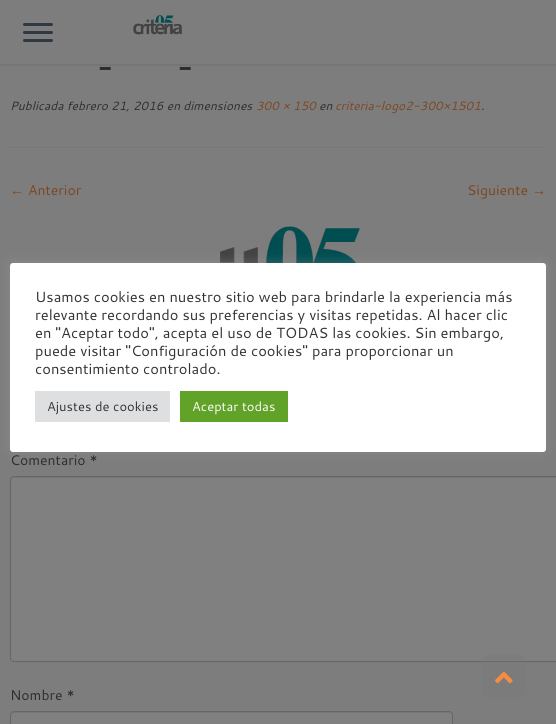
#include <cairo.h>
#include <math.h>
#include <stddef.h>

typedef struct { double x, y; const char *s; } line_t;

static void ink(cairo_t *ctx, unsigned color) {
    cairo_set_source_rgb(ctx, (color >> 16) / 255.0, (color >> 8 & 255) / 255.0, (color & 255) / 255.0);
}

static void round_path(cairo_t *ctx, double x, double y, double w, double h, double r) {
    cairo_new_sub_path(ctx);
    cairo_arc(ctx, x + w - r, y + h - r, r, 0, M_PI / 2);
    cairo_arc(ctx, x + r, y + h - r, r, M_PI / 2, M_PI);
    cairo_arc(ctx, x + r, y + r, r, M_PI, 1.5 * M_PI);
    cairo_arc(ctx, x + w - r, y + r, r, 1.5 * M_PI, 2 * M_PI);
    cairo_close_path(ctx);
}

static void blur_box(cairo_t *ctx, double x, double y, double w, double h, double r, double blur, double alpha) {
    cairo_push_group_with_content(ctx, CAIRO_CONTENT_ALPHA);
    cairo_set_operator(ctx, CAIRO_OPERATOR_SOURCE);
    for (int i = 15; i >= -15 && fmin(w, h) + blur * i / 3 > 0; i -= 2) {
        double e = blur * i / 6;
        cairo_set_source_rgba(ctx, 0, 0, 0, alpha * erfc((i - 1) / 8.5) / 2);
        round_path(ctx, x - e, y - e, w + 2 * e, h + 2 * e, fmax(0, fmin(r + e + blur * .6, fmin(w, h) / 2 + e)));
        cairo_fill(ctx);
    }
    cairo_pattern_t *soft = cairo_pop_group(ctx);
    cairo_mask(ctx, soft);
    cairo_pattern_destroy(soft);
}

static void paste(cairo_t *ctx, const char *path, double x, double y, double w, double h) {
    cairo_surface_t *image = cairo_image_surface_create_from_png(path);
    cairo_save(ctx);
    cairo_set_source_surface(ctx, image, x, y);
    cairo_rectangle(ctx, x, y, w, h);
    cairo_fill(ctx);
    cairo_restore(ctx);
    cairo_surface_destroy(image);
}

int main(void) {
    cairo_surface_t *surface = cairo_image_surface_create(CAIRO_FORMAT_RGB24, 556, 724);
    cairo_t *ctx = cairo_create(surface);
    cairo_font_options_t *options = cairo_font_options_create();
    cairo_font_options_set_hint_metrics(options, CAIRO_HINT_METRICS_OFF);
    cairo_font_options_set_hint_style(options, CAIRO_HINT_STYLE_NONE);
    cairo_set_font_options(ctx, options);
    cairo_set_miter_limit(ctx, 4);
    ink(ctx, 0x7D7D7D);
    cairo_paint(ctx);
    ink(ctx, 0x757577);
    cairo_rectangle(ctx, 0, 64, 556, 2);
    cairo_fill(ctx);
    ink(ctx, 0x303841);
    round_path(ctx, 23, 23, 30, 3, 1.5);
    cairo_fill(ctx);
    round_path(ctx, 23, 31, 30, 3, 1.5);
    cairo_fill(ctx);
    round_path(ctx, 23, 39, 30, 3, 1.5);
    cairo_fill(ctx);
    paste(ctx, "media/1.png", 133, 15, 49, 20);
    cairo_select_font_face(ctx, "Fjalla One", CAIRO_FONT_SLANT_NORMAL, CAIRO_FONT_WEIGHT_NORMAL);
    cairo_set_font_size(ctx, 30);
    ink(ctx, 0x2D2D2D);
    cairo_move_to(ctx, 98, 80);
    cairo_show_text(ctx, "-");
    cairo_move_to(ctx, 178, 80);
    cairo_show_text(ctx, "-");
    cairo_select_font_face(ctx, "Cantarell", CAIRO_FONT_SLANT_ITALIC, CAIRO_FONT_WEIGHT_NORMAL);
    cairo_set_font_size(ctx, 12);
    cairo_move_to(ctx, 10, 110);
    cairo_show_text(ctx, "Publicada febrero 21, 2016 en dimensiones");
    ink(ctx, 0x7C4620);
    cairo_move_to(ctx, 256, 110);
    cairo_show_text(ctx, "300 × 150");
    ink(ctx, 0x2D2D2D);
    cairo_move_to(ctx, 319, 110);
    cairo_show_text(ctx, "en");
    ink(ctx, 0x7C4620);
    cairo_move_to(ctx, 335, 110);
    cairo_show_text(ctx, "criteria-logo2-300×1501");
    ink(ctx, 0x2D2D2D);
    cairo_move_to(ctx, 481, 110);
    cairo_show_text(ctx, ".");
    ink(ctx, 0x777777);
    cairo_rectangle(ctx, 10, 147, 536, 1);
    cairo_fill(ctx);
    ink(ctx, 0x808080);
    cairo_rectangle(ctx, 10, 148, 536, 1);
    cairo_fill(ctx);
    cairo_select_font_face(ctx, "Liberation Serif", CAIRO_FONT_SLANT_NORMAL, CAIRO_FONT_WEIGHT_NORMAL);
    cairo_set_font_size(ctx, 14);
    ink(ctx, 0x7C4620);
    cairo_move_to(ctx, 10, 195);
    cairo_show_text(ctx, "←");
    cairo_select_font_face(ctx, "Cantarell", CAIRO_FONT_SLANT_NORMAL, CAIRO_FONT_WEIGHT_NORMAL);
    cairo_move_to(ctx, 28, 195);
    cairo_show_text(ctx, "Anterior");
    cairo_move_to(ctx, 467, 195);
    cairo_show_text(ctx, "Siguiente");
    cairo_select_font_face(ctx, "Liberation Serif", CAIRO_FONT_SLANT_NORMAL, CAIRO_FONT_WEIGHT_NORMAL);
    cairo_move_to(ctx, 532, 195);
    cairo_show_text(ctx, "→");
    paste(ctx, "media/2.png", 220, 226, 140, 37);
    cairo_select_font_face(ctx, "Cantarell", CAIRO_FONT_SLANT_NORMAL, CAIRO_FONT_WEIGHT_NORMAL);
    ink(ctx, 0x2D2D2D);
    cairo_move_to(ctx, 10, 465);
    cairo_show_text(ctx, "Comentario *");
    ink(ctx, 0x808080);
    round_path(ctx, 10, 476, 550, 186, 4);
    cairo_fill(ctx);
    ink(ctx, 0x767676);
    cairo_new_path(ctx);
    cairo_move_to(ctx, 14, 478);
    cairo_line_to(ctx, 556, 478);
    cairo_curve_to(ctx, 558, 478, 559, 479, 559, 481);
    cairo_line_to(ctx, 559, 480);
    cairo_curve_to(ctx, 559, 478, 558, 477, 556, 477);
    cairo_line_to(ctx, 14, 477);
    cairo_curve_to(ctx, 12, 477, 11, 478, 11, 480);
    cairo_line_to(ctx, 11, 481);
    cairo_curve_to(ctx, 11, 479, 12, 478, 14, 478);
    cairo_close_path(ctx);
    cairo_fill(ctx);
    round_path(ctx, 10.5, 476.5, 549, 185, 3.5);
    ink(ctx, 0x666666);
    cairo_set_line_width(ctx, 1);
    cairo_stroke(ctx);
    ink(ctx, 0x2D2D2D);
    cairo_move_to(ctx, 10, 700);
    cairo_show_text(ctx, "Nombre *");
    ink(ctx, 0x808080);
    round_path(ctx, 10, 711, 443, 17, 4);
    cairo_fill(ctx);
    ink(ctx, 0x767676);
    cairo_new_path(ctx);
    cairo_move_to(ctx, 14, 713);
    cairo_line_to(ctx, 449, 713);
    cairo_curve_to(ctx, 451, 713, 452, 714, 452, 716);
    cairo_curve_to(ctx, 452, 714, 451, 712, 449, 712);
    cairo_line_to(ctx, 13, 712);
    cairo_line_to(ctx, 11, 714);
    cairo_line_to(ctx, 11, 716);
    cairo_curve_to(ctx, 11, 714, 12, 713, 14, 713);
    cairo_close_path(ctx);
    cairo_fill(ctx);
    round_path(ctx, 10.5, 711.5, 442, 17, 3.5);
    ink(ctx, 0x666666);
    cairo_stroke(ctx);
    ink(ctx, 0xACABAB);
    blur_box(ctx, 10, 262, 536, 189, 3, 5, 0.3);
    ink(ctx, 0xFFFFFF);
    round_path(ctx, 10, 263, 536, 189, 3);
    cairo_fill(ctx);
    cairo_set_font_size(ctx, 14.7);
    ink(ctx, 0x333333);
    {
        static const line_t items[] = {
            {35, 302, "Usamos cookies en nuestro sitio web para brindarle la experiencia más"},
            {35, 320, "relevante recordando sus preferencias y visitas repetidas. Al hacer clic"},
            {35, 338, "en \"Aceptar todo\", acepta el uso de TODAS las cookies. Sin embargo,"},
            {35, 356, "puede visitar \"Configuración de cookies\" para proporcionar un"},
            {35, 374, "consentimiento controlado."},
        };
        for (size_t i = 0; i < sizeof items / sizeof *items; i++) {
            cairo_move_to(ctx, items[i].x, items[i].y);
            cairo_show_text(ctx, items[i].s);
        }
    }
    ink(ctx, 0xDEDFE0);
    cairo_rectangle(ctx, 35, 391, 135, 31);
    cairo_fill(ctx);
    cairo_set_font_size(ctx, 13);
    ink(ctx, 0x333333);
    cairo_move_to(ctx, 47, 411);
    cairo_show_text(ctx, "Ajustes de cookies");
    ink(ctx, 0x61A229);
    cairo_rectangle(ctx, 180, 391, 108, 31);
    cairo_fill(ctx);
    ink(ctx, 0xFFFFFF);
    cairo_move_to(ctx, 192, 411);
    cairo_show_text(ctx, "Aceptar todas");
    cairo_set_source_rgba(ctx, 0.467, 0.467, 0.467, 0.2);
    round_path(ctx, 481, 654, 45, 45, 10);
    cairo_fill(ctx);
    paste(ctx, "media/3.png", 495, 671, 18, 13);
    cairo_surface_write_to_png(surface, "image.png");
    cairo_font_options_destroy(options);
    cairo_destroy(ctx);
    cairo_surface_destroy(surface);
    return 0;
}
